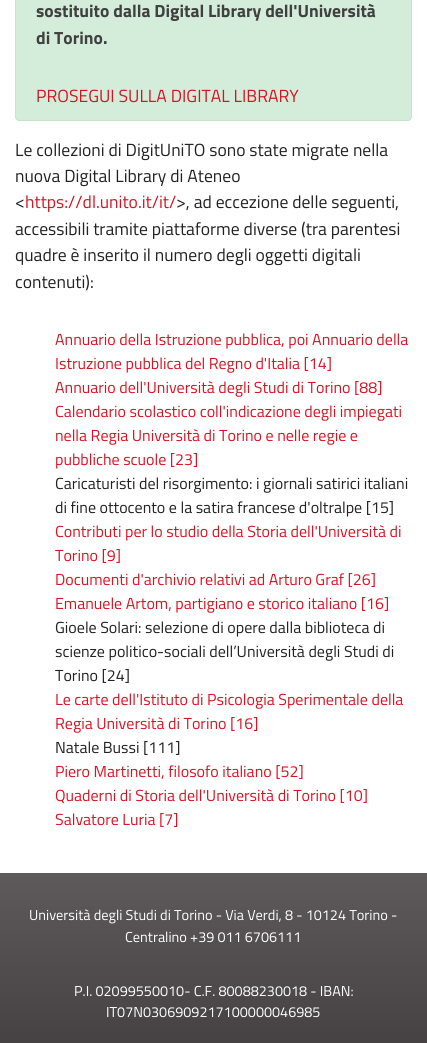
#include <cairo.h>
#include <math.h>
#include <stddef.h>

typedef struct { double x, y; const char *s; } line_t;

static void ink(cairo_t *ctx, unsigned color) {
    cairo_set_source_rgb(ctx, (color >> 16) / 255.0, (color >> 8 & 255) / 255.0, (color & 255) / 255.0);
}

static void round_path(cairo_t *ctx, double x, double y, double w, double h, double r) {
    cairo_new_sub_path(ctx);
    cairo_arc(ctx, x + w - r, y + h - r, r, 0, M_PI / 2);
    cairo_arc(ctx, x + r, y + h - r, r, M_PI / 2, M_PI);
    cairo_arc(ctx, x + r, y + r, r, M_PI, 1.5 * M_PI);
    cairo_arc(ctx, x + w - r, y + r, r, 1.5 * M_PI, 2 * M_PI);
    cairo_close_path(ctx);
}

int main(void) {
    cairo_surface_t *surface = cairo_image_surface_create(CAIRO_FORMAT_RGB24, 427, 1043);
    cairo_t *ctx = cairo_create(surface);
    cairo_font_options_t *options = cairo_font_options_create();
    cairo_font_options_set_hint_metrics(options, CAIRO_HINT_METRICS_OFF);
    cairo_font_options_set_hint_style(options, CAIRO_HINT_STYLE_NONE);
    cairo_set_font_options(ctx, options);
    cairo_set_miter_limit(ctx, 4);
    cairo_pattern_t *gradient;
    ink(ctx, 0xFFFFFF);
    cairo_paint(ctx);
    ink(ctx, 0xD4EDDA);
    round_path(ctx, 15.5, -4.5, 396, 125, 3.5);
    cairo_fill_preserve(ctx);
    ink(ctx, 0xC3E6CB);
    cairo_set_line_width(ctx, 1);
    cairo_stroke(ctx);
    cairo_select_font_face(ctx, "Titillium Web", CAIRO_FONT_SLANT_NORMAL, CAIRO_FONT_WEIGHT_BOLD);
    cairo_set_font_size(ctx, 17.6);
    ink(ctx, 0x404040);
    cairo_move_to(ctx, 36, 17);
    cairo_show_text(ctx, "sostituito dalla Digital Library dell'Università");
    cairo_move_to(ctx, 36, 44);
    cairo_show_text(ctx, "di Torino.");
    cairo_select_font_face(ctx, "Titillium Web", CAIRO_FONT_SLANT_NORMAL, CAIRO_FONT_WEIGHT_NORMAL);
    ink(ctx, 0xD61524);
    cairo_move_to(ctx, 36, 102);
    cairo_show_text(ctx, "PROSEGUI SULLA DIGITAL LIBRARY");
    ink(ctx, 0x222222);
    {
        static const line_t items[] = {
            {15, 156, "Le collezioni di DigitUniTO sono state migrate nella"},
            {15, 182, "nuova Digital Library di Ateneo"},
            {15, 208, "<"},
        };
        for (size_t i = 0; i < sizeof items / sizeof *items; i++) {
            cairo_move_to(ctx, items[i].x, items[i].y);
            cairo_show_text(ctx, items[i].s);
        }
    }
    ink(ctx, 0xD61524);
    cairo_move_to(ctx, 25, 208);
    cairo_show_text(ctx, "https://dl.unito.it/it/");
    ink(ctx, 0x222222);
    {
        static const line_t items[] = {
            {176, 208, ">, ad eccezione delle seguenti,"},
            {15, 235, "accessibili tramite piattaforme diverse (tra parentesi"},
            {15, 261, "quadre è inserito il numero degli oggetti digitali"},
            {15, 288, "contenuti):"},
        };
        for (size_t i = 0; i < sizeof items / sizeof *items; i++) {
            cairo_move_to(ctx, items[i].x, items[i].y);
            cairo_show_text(ctx, items[i].s);
        }
    }
    cairo_set_font_size(ctx, 16);
    ink(ctx, 0xD61524);
    {
        static const line_t items[] = {
            {55, 345, "Annuario della Istruzione pubblica, poi Annuario della"},
            {55, 369, "Istruzione pubblica del Regno d'Italia [14]"},
            {55, 393, "Annuario dell'Università degli Studi di Torino [88]"},
            {55, 417, "Calendario scolastico coll'indicazione degli impiegati"},
            {55, 441, "nella Regia Università di Torino e nelle regie e"},
            {55, 465, "pubbliche scuole [23]"},
        };
        for (size_t i = 0; i < sizeof items / sizeof *items; i++) {
            cairo_move_to(ctx, items[i].x, items[i].y);
            cairo_show_text(ctx, items[i].s);
        }
    }
    ink(ctx, 0x222222);
    cairo_move_to(ctx, 55, 489);
    cairo_show_text(ctx, "Caricaturisti del risorgimento: i giornali satirici italiani");
    cairo_move_to(ctx, 55, 513);
    cairo_show_text(ctx, "di fine ottocento e la satira francese d'oltralpe [15]");
    ink(ctx, 0xD61524);
    {
        static const line_t items[] = {
            {55, 537, "Contributi per lo studio della Storia dell'Università di"},
            {55, 561, "Torino [9]"},
            {55, 585, "Documenti d'archivio relativi ad Arturo Graf [26]"},
            {55, 609, "Emanuele Artom, partigiano e storico italiano [16]"},
        };
        for (size_t i = 0; i < sizeof items / sizeof *items; i++) {
            cairo_move_to(ctx, items[i].x, items[i].y);
            cairo_show_text(ctx, items[i].s);
        }
    }
    ink(ctx, 0x222222);
    {
        static const line_t items[] = {
            {55, 633, "Gioele Solari: selezione di opere dalla biblioteca di"},
            {55, 657, "scienze politico-sociali dell’Università degli Studi di"},
            {55, 681, "Torino [24]"},
        };
        for (size_t i = 0; i < sizeof items / sizeof *items; i++) {
            cairo_move_to(ctx, items[i].x, items[i].y);
            cairo_show_text(ctx, items[i].s);
        }
    }
    ink(ctx, 0xD61524);
    cairo_move_to(ctx, 55, 705);
    cairo_show_text(ctx, "Le carte dell'Istituto di Psicologia Sperimentale della");
    cairo_move_to(ctx, 55, 729);
    cairo_show_text(ctx, "Regia Università di Torino [16]");
    ink(ctx, 0x222222);
    cairo_move_to(ctx, 55, 753);
    cairo_show_text(ctx, "Natale Bussi [111]");
    ink(ctx, 0xD61524);
    {
        static const line_t items[] = {
            {55, 777, "Piero Martinetti, filosofo italiano [52]"},
            {55, 801, "Quaderni di Storia dell'Università di Torino [10]"},
            {55, 825, "Salvatore Luria [7]"},
        };
        for (size_t i = 0; i < sizeof items / sizeof *items; i++) {
            cairo_move_to(ctx, items[i].x, items[i].y);
            cairo_show_text(ctx, items[i].s);
        }
    }
    gradient = cairo_pattern_create_linear(214, 873, 214, 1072);
    cairo_pattern_add_color_stop_rgba(gradient, 0, 0.369, 0.353, 0.357, 1);
    cairo_pattern_add_color_stop_rgba(gradient, 1, 0.259, 0.243, 0.247, 1);
    cairo_set_source(ctx, gradient);
    cairo_pattern_destroy(gradient);
    cairo_rectangle(ctx, 0, 873, 427, 170);
    cairo_fill(ctx);
    cairo_set_font_size(ctx, 14.4);
    ink(ctx, 0xFFFFFF);
    {
        static const line_t items[] = {
            {29, 920, "Università degli Studi di Torino - Via Verdi, 8 - 10124 Torino -"},
            {125, 942, "Centralino +39 011 6706111"},
            {74, 996, "P.I. 02099550010- C.F. 80088230018 - IBAN:"},
            {106, 1017, "IT07N0306909217100000046985"},
        };
        for (size_t i = 0; i < sizeof items / sizeof *items; i++) {
            cairo_move_to(ctx, items[i].x, items[i].y);
            cairo_show_text(ctx, items[i].s);
        }
    }
    cairo_surface_write_to_png(surface, "image.png");
    cairo_font_options_destroy(options);
    cairo_destroy(ctx);
    cairo_surface_destroy(surface);
    return 0;
}
